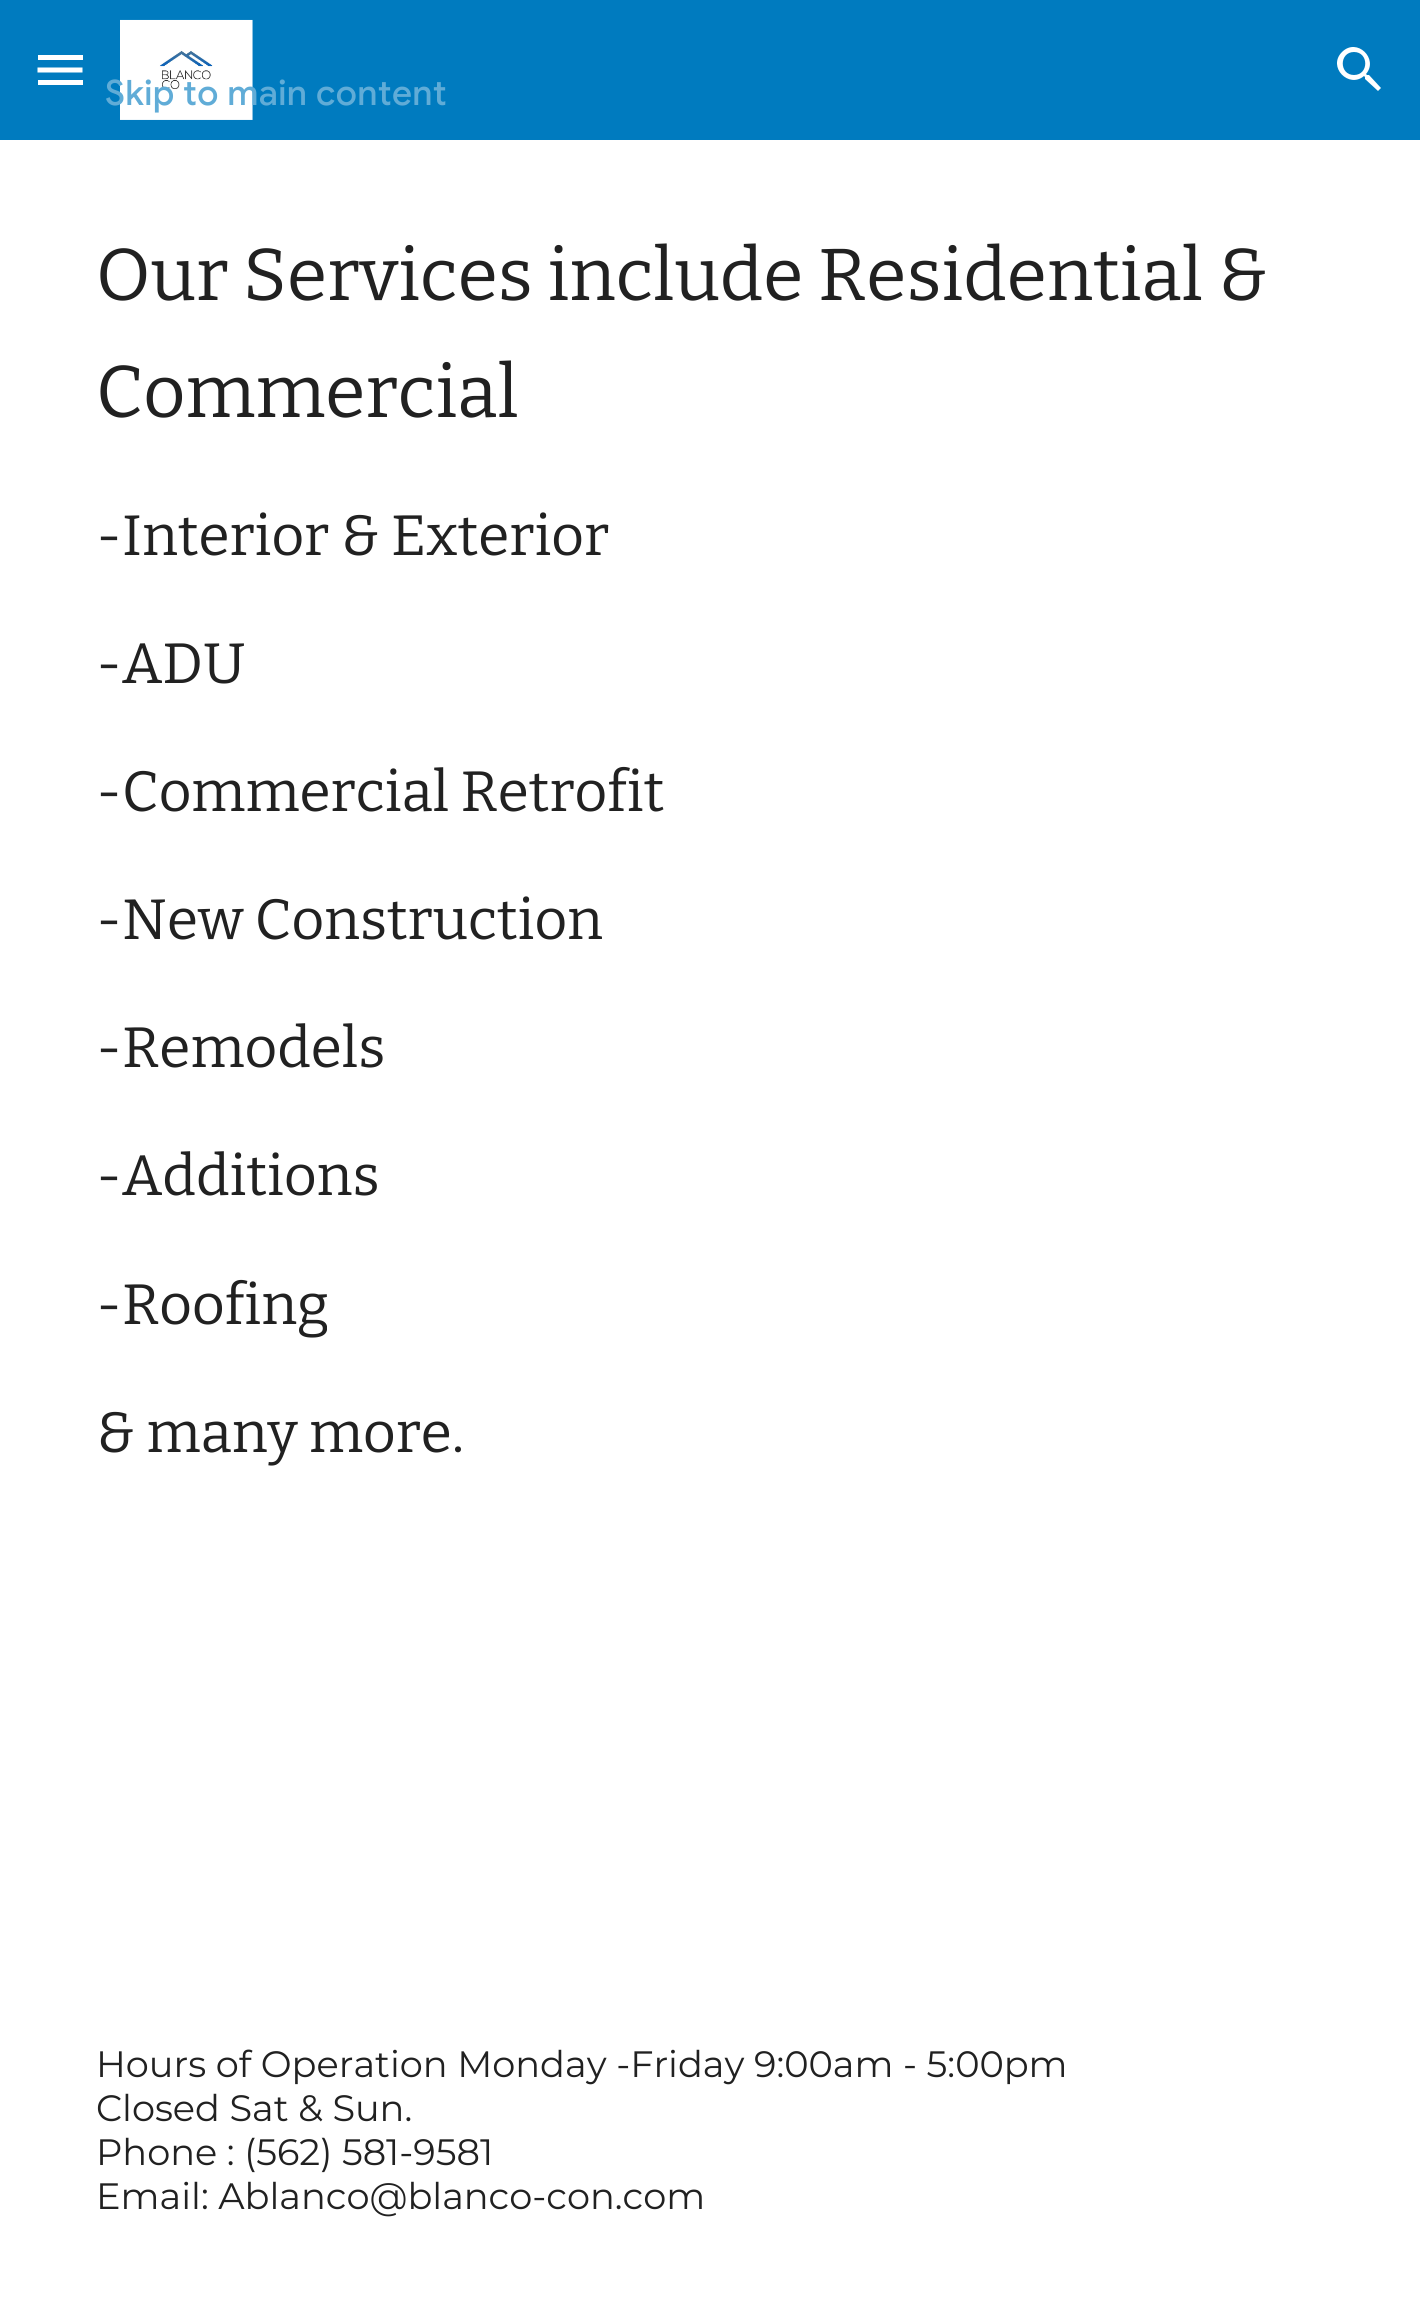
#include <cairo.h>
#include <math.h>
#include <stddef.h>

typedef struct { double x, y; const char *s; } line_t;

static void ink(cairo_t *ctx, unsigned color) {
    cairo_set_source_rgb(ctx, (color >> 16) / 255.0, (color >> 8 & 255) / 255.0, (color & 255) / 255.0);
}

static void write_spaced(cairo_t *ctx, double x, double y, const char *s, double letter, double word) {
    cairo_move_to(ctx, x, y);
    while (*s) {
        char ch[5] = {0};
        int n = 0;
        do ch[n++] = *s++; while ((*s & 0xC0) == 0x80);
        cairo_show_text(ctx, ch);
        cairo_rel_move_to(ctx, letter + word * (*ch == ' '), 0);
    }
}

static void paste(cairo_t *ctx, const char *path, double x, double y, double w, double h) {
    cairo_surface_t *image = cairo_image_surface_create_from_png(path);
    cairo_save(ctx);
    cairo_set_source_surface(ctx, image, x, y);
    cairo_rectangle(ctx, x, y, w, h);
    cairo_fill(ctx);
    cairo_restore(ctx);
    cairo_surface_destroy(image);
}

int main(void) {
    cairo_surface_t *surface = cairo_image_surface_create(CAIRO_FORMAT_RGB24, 1420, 2298);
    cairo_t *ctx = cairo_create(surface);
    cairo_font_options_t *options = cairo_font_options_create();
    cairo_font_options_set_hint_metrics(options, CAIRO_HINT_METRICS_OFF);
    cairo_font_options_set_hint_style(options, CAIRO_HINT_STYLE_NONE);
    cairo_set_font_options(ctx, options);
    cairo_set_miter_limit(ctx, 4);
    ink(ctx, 0xFFFFFF);
    cairo_paint(ctx);
    ink(ctx, 0x007BBF);
    cairo_rectangle(ctx, 0, 0, 1420, 140);
    cairo_fill(ctx);
    paste(ctx, "media/1.png", 120, 19, 133, 101);
    cairo_select_font_face(ctx, "Google Sans Medium", CAIRO_FONT_SLANT_NORMAL, CAIRO_FONT_WEIGHT_NORMAL);
    cairo_set_font_size(ctx, 35);
    ink(ctx, 0x60ACD7);
    write_spaced(ctx, 105, 105, "Skip to main content", 0.4, 0);
    ink(ctx, 0xFFFFFF);
    cairo_new_path(ctx);
    cairo_move_to(ctx, 1369, 75);
    cairo_line_to(ctx, 1367, 75);
    cairo_line_to(ctx, 1366, 74);
    cairo_curve_to(ctx, 1379, 59, 1357, 37, 1342, 52);
    cairo_curve_to(ctx, 1327, 67, 1349, 89, 1364, 76);
    cairo_line_to(ctx, 1365, 77);
    cairo_line_to(ctx, 1365, 79);
    cairo_line_to(ctx, 1378, 91);
    cairo_line_to(ctx, 1381, 88);
    cairo_close_path(ctx);
    cairo_move_to(ctx, 1354, 75);
    cairo_curve_to(ctx, 1339, 75, 1339, 52, 1354, 52);
    cairo_curve_to(ctx, 1369, 52, 1369, 75, 1354, 75);
    cairo_close_path(ctx);
    cairo_fill(ctx);
    cairo_rectangle(ctx, 38, 55, 45, 5);
    cairo_fill(ctx);
    cairo_new_path(ctx);
    cairo_move_to(ctx, 37.5, 70);
    cairo_line_to(ctx, 82.5, 70);
    cairo_set_line_width(ctx, 5);
    cairo_stroke(ctx);
    cairo_rectangle(ctx, 38, 80, 45, 5);
    cairo_fill(ctx);
    cairo_select_font_face(ctx, "Bitter", CAIRO_FONT_SLANT_NORMAL, CAIRO_FONT_WEIGHT_NORMAL);
    cairo_set_font_size(ctx, 73.3);
    ink(ctx, 0x212121);
    cairo_move_to(ctx, 96, 300);
    cairo_show_text(ctx, "Our Services include Residential &");
    cairo_move_to(ctx, 96, 417);
    cairo_show_text(ctx, "Commercial");
    cairo_set_font_size(ctx, 56.75);
    {
        static const line_t items[] = {
            {96, 555, "-Interior & Exterior"},
            {96, 683, "-ADU"},
            {96, 811, "-Commercial Retrofit"},
            {96, 939, "-New Construction"},
            {96, 1067, "-Remodels"},
            {96, 1195, "-Additions"},
            {96, 1324, "-Roofing"},
            {96, 1452, "& many more."},
        };
        for (size_t i = 0; i < sizeof items / sizeof *items; i++) {
            cairo_move_to(ctx, items[i].x, items[i].y);
            cairo_show_text(ctx, items[i].s);
        }
    }
    cairo_select_font_face(ctx, "Montserrat", CAIRO_FONT_SLANT_NORMAL, CAIRO_FONT_WEIGHT_NORMAL);
    cairo_set_font_size(ctx, 36.7);
    {
        static const line_t items[] = {
            {96, 2077, "Hours of Operation Monday -Friday 9:00am - 5:00pm"},
            {96, 2121, "Closed Sat & Sun."},
            {96, 2165, "Phone : (562) 581-9581"},
            {96, 2209, "Email: Ablanco@blanco-con.com"},
        };
        for (size_t i = 0; i < sizeof items / sizeof *items; i++) {
            cairo_move_to(ctx, items[i].x, items[i].y);
            cairo_show_text(ctx, items[i].s);
        }
    }
    cairo_surface_write_to_png(surface, "image.png");
    cairo_font_options_destroy(options);
    cairo_destroy(ctx);
    cairo_surface_destroy(surface);
    return 0;
}
